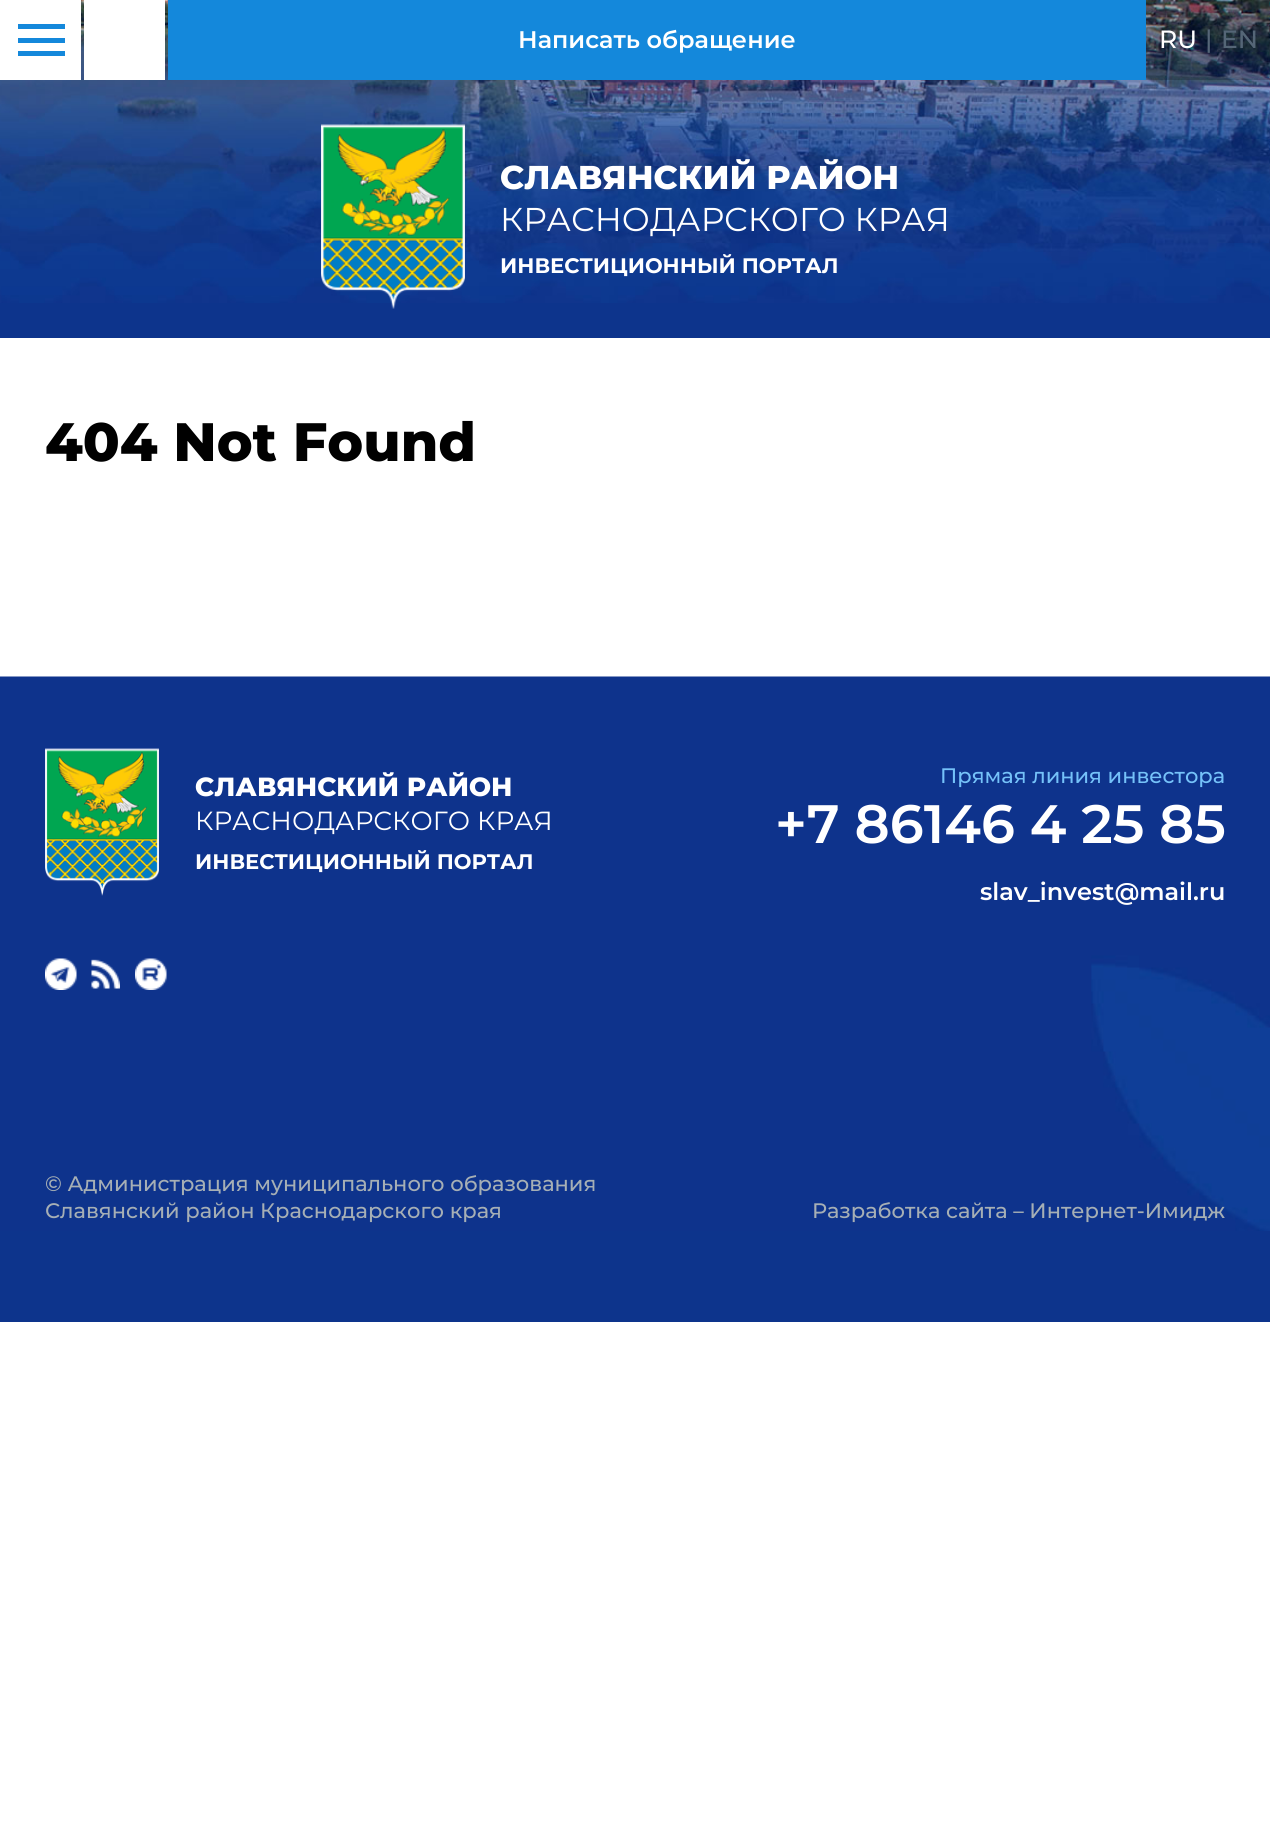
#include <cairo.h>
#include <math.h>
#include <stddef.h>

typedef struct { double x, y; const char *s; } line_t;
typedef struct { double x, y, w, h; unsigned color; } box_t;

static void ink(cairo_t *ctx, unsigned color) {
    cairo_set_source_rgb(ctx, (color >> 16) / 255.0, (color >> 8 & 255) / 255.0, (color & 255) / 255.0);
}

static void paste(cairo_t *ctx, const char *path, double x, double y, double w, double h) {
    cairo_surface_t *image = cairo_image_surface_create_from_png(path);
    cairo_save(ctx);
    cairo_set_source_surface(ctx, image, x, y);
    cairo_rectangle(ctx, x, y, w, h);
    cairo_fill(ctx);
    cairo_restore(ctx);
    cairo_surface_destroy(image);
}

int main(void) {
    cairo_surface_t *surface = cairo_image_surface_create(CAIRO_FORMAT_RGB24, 1270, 1838);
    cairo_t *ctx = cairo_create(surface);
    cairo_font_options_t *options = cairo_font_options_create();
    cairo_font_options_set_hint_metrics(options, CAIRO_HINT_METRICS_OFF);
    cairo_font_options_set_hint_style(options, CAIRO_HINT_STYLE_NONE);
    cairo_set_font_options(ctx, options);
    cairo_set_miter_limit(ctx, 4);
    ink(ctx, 0xFFFFFF);
    cairo_paint(ctx);
    ink(ctx, 0x0D348C);
    cairo_rectangle(ctx, 0, 303, 1270, 35);
    cairo_fill(ctx);
    paste(ctx, "media/1.png", 0, 0, 1270, 303);
    {
        static const box_t items[] = {
            {0, 0, 81, 80, 0xFFFFFF},
            {18, 38, 47, 5, 0x1488DB},
            {18, 24, 47, 5, 0x1488DB},
            {18, 51, 47, 5, 0x1488DB},
            {84, 0, 81, 80, 0xFFFFFF},
            {168, 0, 978, 80, 0x1488DB},
        };
        for (size_t i = 0; i < sizeof items / sizeof *items; i++) {
            ink(ctx, items[i].color);
            cairo_rectangle(ctx, items[i].x, items[i].y, items[i].w, items[i].h);
            cairo_fill(ctx);
        }
    }
    cairo_select_font_face(ctx, "Montserrat SemiBold", CAIRO_FONT_SLANT_NORMAL, CAIRO_FONT_WEIGHT_NORMAL);
    cairo_set_font_size(ctx, 24);
    ink(ctx, 0xFFFFFF);
    cairo_move_to(ctx, 518, 48);
    cairo_show_text(ctx, "Написать обращение");
    cairo_set_source_rgba(ctx, 0, 0, 0, 0.2);
    cairo_rectangle(ctx, 1146, 0, 124, 80);
    cairo_fill(ctx);
    cairo_select_font_face(ctx, "Montserrat Medium", CAIRO_FONT_SLANT_NORMAL, CAIRO_FONT_WEIGHT_NORMAL);
    cairo_set_font_size(ctx, 25);
    ink(ctx, 0xFFFFFF);
    cairo_move_to(ctx, 1159, 48);
    cairo_show_text(ctx, "RU");
    ink(ctx, 0x556677);
    cairo_move_to(ctx, 1205, 48);
    cairo_show_text(ctx, "|");
    cairo_move_to(ctx, 1221, 48);
    cairo_show_text(ctx, "EN");
    paste(ctx, "media/2.png", 321, 124, 144, 185);
    cairo_select_font_face(ctx, "Montserrat ExtraBold", CAIRO_FONT_SLANT_NORMAL, CAIRO_FONT_WEIGHT_NORMAL);
    cairo_set_font_size(ctx, 33);
    ink(ctx, 0xFFFFFF);
    cairo_move_to(ctx, 500, 189);
    cairo_show_text(ctx, "СЛАВЯНСКИЙ РАЙОН");
    cairo_select_font_face(ctx, "Montserrat", CAIRO_FONT_SLANT_NORMAL, CAIRO_FONT_WEIGHT_NORMAL);
    cairo_move_to(ctx, 500, 231);
    cairo_show_text(ctx, "КРАСНОДАРСКОГО КРАЯ");
    cairo_select_font_face(ctx, "Montserrat", CAIRO_FONT_SLANT_NORMAL, CAIRO_FONT_WEIGHT_BOLD);
    cairo_set_font_size(ctx, 21);
    cairo_move_to(ctx, 500, 273);
    cairo_show_text(ctx, "ИНВЕСТИЦИОННЫЙ ПОРТАЛ");
    cairo_select_font_face(ctx, "Montserrat ExtraBold", CAIRO_FONT_SLANT_NORMAL, CAIRO_FONT_WEIGHT_NORMAL);
    cairo_set_font_size(ctx, 54);
    ink(ctx, 0x000000);
    cairo_move_to(ctx, 45, 461);
    cairo_show_text(ctx, "404 Not Found");
    ink(ctx, 0x0D348C);
    cairo_rectangle(ctx, 0, 1231, 1270, 91);
    cairo_fill(ctx);
    paste(ctx, "media/3.png", 0, 676, 1270, 555);
    paste(ctx, "media/4.png", 45, 748, 114, 148);
    cairo_set_font_size(ctx, 26.25);
    ink(ctx, 0xFFFFFF);
    cairo_move_to(ctx, 195, 796);
    cairo_show_text(ctx, "СЛАВЯНСКИЙ РАЙОН");
    cairo_select_font_face(ctx, "Montserrat", CAIRO_FONT_SLANT_NORMAL, CAIRO_FONT_WEIGHT_NORMAL);
    cairo_move_to(ctx, 195, 830);
    cairo_show_text(ctx, "КРАСНОДАРСКОГО КРАЯ");
    cairo_select_font_face(ctx, "Montserrat", CAIRO_FONT_SLANT_NORMAL, CAIRO_FONT_WEIGHT_BOLD);
    cairo_set_font_size(ctx, 21);
    cairo_move_to(ctx, 195, 869);
    cairo_show_text(ctx, "ИНВЕСТИЦИОННЫЙ ПОРТАЛ");
    paste(ctx, "media/5.png", 45, 958, 32, 32);
    paste(ctx, "media/6.png", 91, 959, 29, 30);
    paste(ctx, "media/7.png", 135, 958, 32, 32);
    cairo_select_font_face(ctx, "Montserrat Medium", CAIRO_FONT_SLANT_NORMAL, CAIRO_FONT_WEIGHT_NORMAL);
    ink(ctx, 0x75C2F9);
    cairo_move_to(ctx, 940, 783);
    cairo_show_text(ctx, "Прямая линия инвестора");
    cairo_select_font_face(ctx, "Montserrat SemiBold", CAIRO_FONT_SLANT_NORMAL, CAIRO_FONT_WEIGHT_NORMAL);
    cairo_set_font_size(ctx, 54);
    ink(ctx, 0xFFFFFF);
    cairo_move_to(ctx, 775, 843);
    cairo_show_text(ctx, "+7 86146 4 25 85");
    cairo_set_font_size(ctx, 24);
    cairo_move_to(ctx, 980, 900);
    cairo_show_text(ctx, "slav_invest@mail.ru");
    cairo_select_font_face(ctx, "Montserrat Medium", CAIRO_FONT_SLANT_NORMAL, CAIRO_FONT_WEIGHT_NORMAL);
    cairo_set_font_size(ctx, 21);
    ink(ctx, 0xA6AFB5);
    {
        static const line_t items[] = {
            {45, 1191, "© Администрация муниципального образования"},
            {45, 1218, "Славянский район Краснодарского края"},
            {812, 1218, "Разработка сайта – Интернет-Имидж"},
        };
        for (size_t i = 0; i < sizeof items / sizeof *items; i++) {
            cairo_move_to(ctx, items[i].x, items[i].y);
            cairo_show_text(ctx, items[i].s);
        }
    }
    cairo_surface_write_to_png(surface, "image.png");
    cairo_font_options_destroy(options);
    cairo_destroy(ctx);
    cairo_surface_destroy(surface);
    return 0;
}
